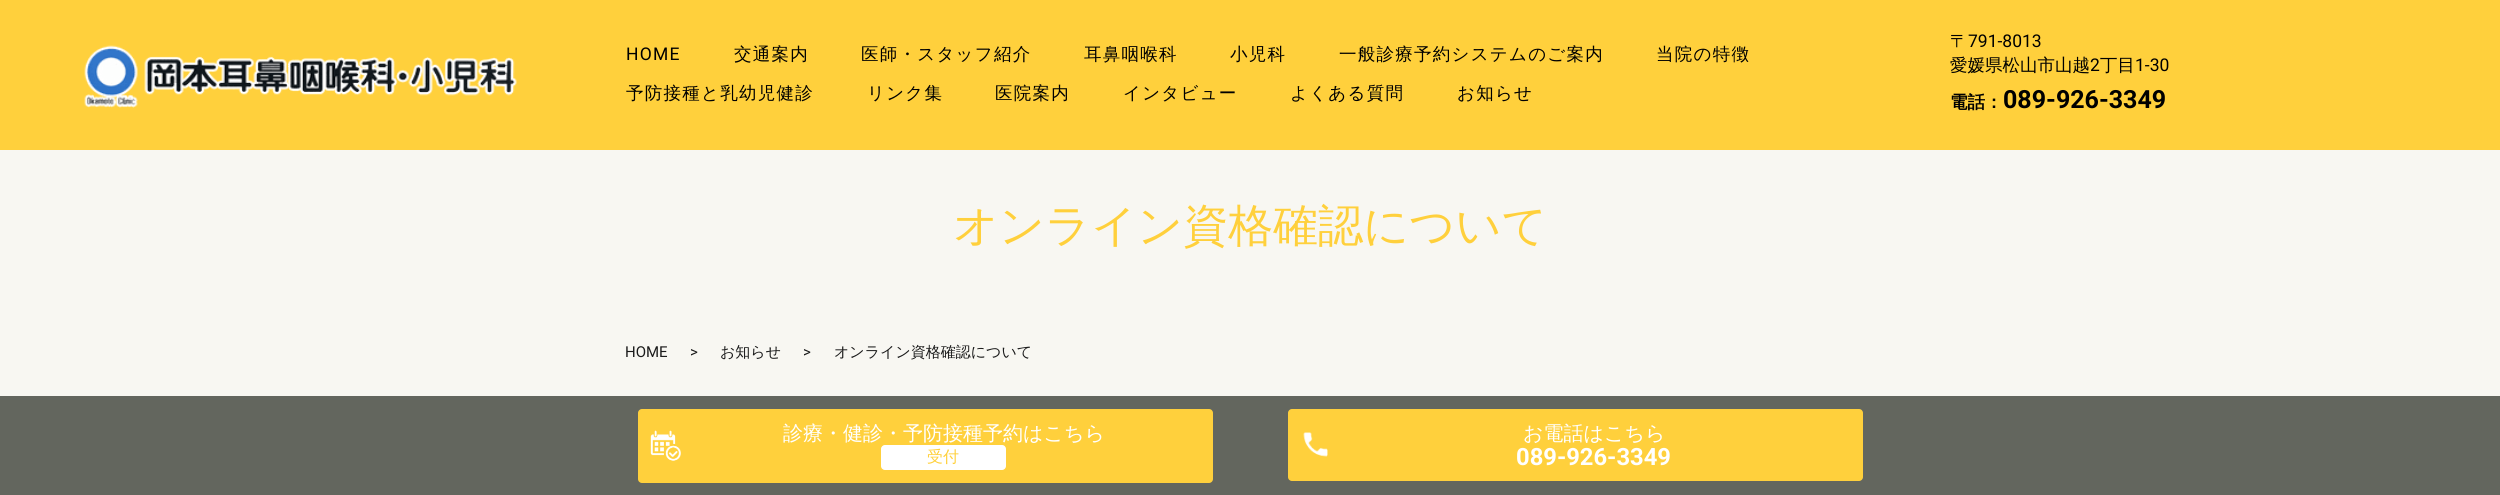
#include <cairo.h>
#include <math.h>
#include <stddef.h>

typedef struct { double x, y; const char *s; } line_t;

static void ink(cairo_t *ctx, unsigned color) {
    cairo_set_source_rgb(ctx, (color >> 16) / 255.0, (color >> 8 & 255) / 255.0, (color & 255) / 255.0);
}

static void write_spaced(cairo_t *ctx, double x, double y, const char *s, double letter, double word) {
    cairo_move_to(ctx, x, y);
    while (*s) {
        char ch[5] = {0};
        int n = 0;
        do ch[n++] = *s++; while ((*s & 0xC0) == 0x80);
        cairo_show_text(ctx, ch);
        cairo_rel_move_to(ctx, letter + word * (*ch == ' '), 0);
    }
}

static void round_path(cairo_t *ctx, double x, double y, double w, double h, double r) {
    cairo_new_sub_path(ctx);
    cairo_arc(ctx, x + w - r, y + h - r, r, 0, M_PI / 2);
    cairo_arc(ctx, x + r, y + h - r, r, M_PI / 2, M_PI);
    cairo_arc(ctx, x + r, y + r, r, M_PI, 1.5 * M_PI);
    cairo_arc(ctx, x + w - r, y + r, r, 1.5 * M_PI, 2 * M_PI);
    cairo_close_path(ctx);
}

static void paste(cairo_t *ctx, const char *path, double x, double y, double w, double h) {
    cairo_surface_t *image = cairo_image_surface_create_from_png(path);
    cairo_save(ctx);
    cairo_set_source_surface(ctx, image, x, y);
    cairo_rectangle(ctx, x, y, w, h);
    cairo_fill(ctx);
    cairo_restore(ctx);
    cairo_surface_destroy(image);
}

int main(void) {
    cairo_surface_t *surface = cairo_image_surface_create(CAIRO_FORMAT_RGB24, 2500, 495);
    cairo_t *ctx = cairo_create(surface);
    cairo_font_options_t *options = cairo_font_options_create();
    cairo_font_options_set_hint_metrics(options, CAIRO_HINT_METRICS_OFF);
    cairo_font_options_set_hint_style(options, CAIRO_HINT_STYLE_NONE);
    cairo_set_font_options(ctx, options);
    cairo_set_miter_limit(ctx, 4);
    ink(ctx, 0xF8F7F2);
    cairo_paint(ctx);
    ink(ctx, 0x63665E);
    cairo_rectangle(ctx, 0, 396, 2500, 99);
    cairo_fill(ctx);
    ink(ctx, 0xFFD03C);
    cairo_rectangle(ctx, 0, 0, 2500, 150);
    cairo_fill(ctx);
    paste(ctx, "media/1.png", 84, 45, 433, 63);
    cairo_select_font_face(ctx, "Roboto", CAIRO_FONT_SLANT_NORMAL, CAIRO_FONT_WEIGHT_NORMAL);
    cairo_set_font_size(ctx, 17.5);
    ink(ctx, 0x000000);
    write_spaced(ctx, 626, 60, "HOME", 1.25, 0);
    cairo_select_font_face(ctx, "WenQuanYi Zen Hei Medium", CAIRO_FONT_SLANT_NORMAL, CAIRO_FONT_WEIGHT_NORMAL);
    {
        static const line_t items[] = {
            {734, 60, "交通案内"},
            {861, 60, "医師・スタッフ紹介"},
            {1084, 60, "耳鼻咽喉科"},
            {1230, 60, "小児科"},
            {1339, 60, "一般診療予約システムのご案内"},
            {1656, 60, "当院の特徴"},
            {626, 99, "予防接種と乳幼児健診"},
            {867, 99, "リンク集"},
            {995, 99, "医院案内"},
            {1123, 99, "インタビュー"},
            {1290, 99, "よくある質問"},
            {1457, 99, "お知らせ"},
        };
        for (size_t i = 0; i < sizeof items / sizeof *items; i++) {
            write_spaced(ctx, items[i].x, items[i].y, items[i].s, 1.25, 0);
        }
    }
    cairo_move_to(ctx, 1950, 47);
    cairo_show_text(ctx, "〒");
    cairo_select_font_face(ctx, "Roboto", CAIRO_FONT_SLANT_NORMAL, CAIRO_FONT_WEIGHT_NORMAL);
    cairo_move_to(ctx, 1968, 47);
    cairo_show_text(ctx, "791-8013");
    cairo_select_font_face(ctx, "WenQuanYi Zen Hei Medium", CAIRO_FONT_SLANT_NORMAL, CAIRO_FONT_WEIGHT_NORMAL);
    cairo_move_to(ctx, 1950, 71);
    cairo_show_text(ctx, "愛媛県松山市山越");
    cairo_select_font_face(ctx, "Roboto", CAIRO_FONT_SLANT_NORMAL, CAIRO_FONT_WEIGHT_NORMAL);
    cairo_move_to(ctx, 2090, 71);
    cairo_show_text(ctx, "2");
    cairo_select_font_face(ctx, "WenQuanYi Zen Hei Medium", CAIRO_FONT_SLANT_NORMAL, CAIRO_FONT_WEIGHT_NORMAL);
    cairo_move_to(ctx, 2100, 71);
    cairo_show_text(ctx, "丁目");
    cairo_select_font_face(ctx, "Roboto", CAIRO_FONT_SLANT_NORMAL, CAIRO_FONT_WEIGHT_NORMAL);
    cairo_move_to(ctx, 2135, 71);
    cairo_show_text(ctx, "1-30");
    cairo_select_font_face(ctx, "WenQuanYi Zen Hei", CAIRO_FONT_SLANT_NORMAL, CAIRO_FONT_WEIGHT_BOLD);
    cairo_move_to(ctx, 1950, 108);
    cairo_show_text(ctx, "電話：");
    cairo_select_font_face(ctx, "Roboto", CAIRO_FONT_SLANT_NORMAL, CAIRO_FONT_WEIGHT_BOLD);
    cairo_set_font_size(ctx, 25);
    cairo_move_to(ctx, 2003, 108);
    cairo_show_text(ctx, "089-926-3349");
    cairo_select_font_face(ctx, "WenQuanYi Zen Hei Medium", CAIRO_FONT_SLANT_NORMAL, CAIRO_FONT_WEIGHT_NORMAL);
    cairo_set_font_size(ctx, 45);
    ink(ctx, 0xFFD03C);
    cairo_move_to(ctx, 953, 241);
    cairo_show_text(ctx, "オンライン資格確認について");
    cairo_select_font_face(ctx, "Roboto", CAIRO_FONT_SLANT_NORMAL, CAIRO_FONT_WEIGHT_NORMAL);
    cairo_set_font_size(ctx, 15);
    ink(ctx, 0x1B1B1B);
    cairo_move_to(ctx, 625, 357);
    cairo_show_text(ctx, "HOME");
    cairo_move_to(ctx, 690, 357);
    cairo_show_text(ctx, ">");
    cairo_select_font_face(ctx, "WenQuanYi Zen Hei Medium", CAIRO_FONT_SLANT_NORMAL, CAIRO_FONT_WEIGHT_NORMAL);
    cairo_move_to(ctx, 720, 357);
    cairo_show_text(ctx, "お知らせ");
    cairo_select_font_face(ctx, "Roboto", CAIRO_FONT_SLANT_NORMAL, CAIRO_FONT_WEIGHT_NORMAL);
    cairo_move_to(ctx, 803, 357);
    cairo_show_text(ctx, ">");
    cairo_select_font_face(ctx, "WenQuanYi Zen Hei Medium", CAIRO_FONT_SLANT_NORMAL, CAIRO_FONT_WEIGHT_NORMAL);
    cairo_move_to(ctx, 834, 357);
    cairo_show_text(ctx, "オンライン資格確認について");
    ink(ctx, 0xFFD03C);
    round_path(ctx, 638, 409, 575, 74, 4);
    cairo_fill(ctx);
    paste(ctx, "media/2.png", 650, 430, 31, 31);
    cairo_set_font_size(ctx, 20);
    ink(ctx, 0xFFFFFF);
    cairo_move_to(ctx, 783, 440);
    cairo_show_text(ctx, "診療・健診・予防接種予約はこちら");
    round_path(ctx, 881, 445, 125, 25, 4);
    cairo_fill(ctx);
    cairo_set_font_size(ctx, 16);
    ink(ctx, 0xFFD03C);
    cairo_move_to(ctx, 927, 462);
    cairo_show_text(ctx, "受付");
    round_path(ctx, 1288, 409, 575, 72, 4);
    cairo_fill(ctx);
    paste(ctx, "media/3.png", 1303, 432, 25, 25);
    cairo_set_font_size(ctx, 20);
    ink(ctx, 0xFFFFFF);
    cairo_move_to(ctx, 1523, 440);
    cairo_show_text(ctx, "お電話はこちら");
    cairo_select_font_face(ctx, "Roboto", CAIRO_FONT_SLANT_NORMAL, CAIRO_FONT_WEIGHT_BOLD);
    cairo_set_font_size(ctx, 23.75);
    cairo_move_to(ctx, 1516, 465);
    cairo_show_text(ctx, "089-926-3349");
    cairo_surface_write_to_png(surface, "image.png");
    cairo_font_options_destroy(options);
    cairo_destroy(ctx);
    cairo_surface_destroy(surface);
    return 0;
}
